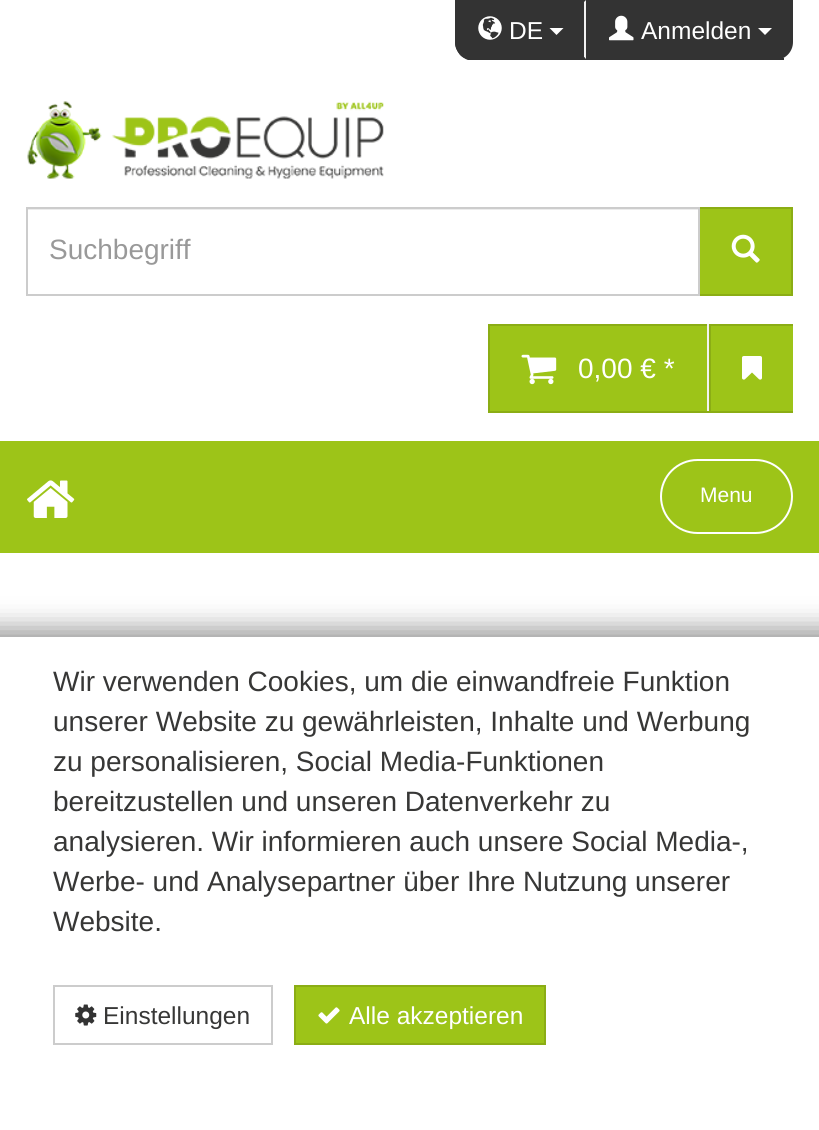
#include <cairo.h>
#include <math.h>
#include <stddef.h>

typedef struct { double x, y; const char *s; } line_t;
typedef struct { double x, y, w, h; unsigned color; } box_t;

static void ink(cairo_t *ctx, unsigned color) {
    cairo_set_source_rgb(ctx, (color >> 16) / 255.0, (color >> 8 & 255) / 255.0, (color & 255) / 255.0);
}

static void round_path(cairo_t *ctx, double x, double y, double w, double h, double r) {
    cairo_new_sub_path(ctx);
    cairo_arc(ctx, x + w - r, y + h - r, r, 0, M_PI / 2);
    cairo_arc(ctx, x + r, y + h - r, r, M_PI / 2, M_PI);
    cairo_arc(ctx, x + r, y + r, r, M_PI, 1.5 * M_PI);
    cairo_arc(ctx, x + w - r, y + r, r, 1.5 * M_PI, 2 * M_PI);
    cairo_close_path(ctx);
}

static void blur_box(cairo_t *ctx, double x, double y, double w, double h, double r, double blur, double alpha) {
    cairo_push_group_with_content(ctx, CAIRO_CONTENT_ALPHA);
    cairo_set_operator(ctx, CAIRO_OPERATOR_SOURCE);
    for (int i = 15; i >= -15 && fmin(w, h) + blur * i / 3 > 0; i -= 2) {
        double e = blur * i / 6;
        cairo_set_source_rgba(ctx, 0, 0, 0, alpha * erfc((i - 1) / 8.5) / 2);
        round_path(ctx, x - e, y - e, w + 2 * e, h + 2 * e, fmax(0, fmin(r + e + blur * .6, fmin(w, h) / 2 + e)));
        cairo_fill(ctx);
    }
    cairo_pattern_t *soft = cairo_pop_group(ctx);
    cairo_mask(ctx, soft);
    cairo_pattern_destroy(soft);
}

static void paste(cairo_t *ctx, const char *path, double x, double y, double w, double h) {
    cairo_surface_t *image = cairo_image_surface_create_from_png(path);
    cairo_save(ctx);
    cairo_set_source_surface(ctx, image, x, y);
    cairo_rectangle(ctx, x, y, w, h);
    cairo_fill(ctx);
    cairo_restore(ctx);
    cairo_surface_destroy(image);
}

int main(void) {
    cairo_surface_t *surface = cairo_image_surface_create(CAIRO_FORMAT_RGB24, 819, 1130);
    cairo_t *ctx = cairo_create(surface);
    cairo_font_options_t *options = cairo_font_options_create();
    cairo_font_options_set_hint_metrics(options, CAIRO_HINT_METRICS_OFF);
    cairo_font_options_set_hint_style(options, CAIRO_HINT_STYLE_NONE);
    cairo_set_font_options(ctx, options);
    cairo_set_miter_limit(ctx, 4);
    ink(ctx, 0xFFFFFF);
    cairo_paint(ctx);
    ink(ctx, 0x333333);
    cairo_new_path(ctx);
    cairo_move_to(ctx, 455, 0);
    cairo_line_to(ctx, 586, 0);
    cairo_line_to(ctx, 586, 60);
    cairo_line_to(ctx, 473, 60);
    cairo_curve_to(ctx, 463, 60, 455, 52, 455, 42);
    cairo_close_path(ctx);
    cairo_fill(ctx);
    ink(ctx, 0xF2F2F2);
    cairo_new_path(ctx);
    cairo_move_to(ctx, 586, 0);
    cairo_line_to(ctx, 586, 59);
    cairo_line_to(ctx, 584, 57);
    cairo_line_to(ctx, 584, 2);
    cairo_close_path(ctx);
    cairo_fill(ctx);
    ink(ctx, 0x333333);
    cairo_new_path(ctx);
    cairo_move_to(ctx, 468, 60);
    cairo_curve_to(ctx, 465, 59, 462, 57, 460, 55);
    cairo_line_to(ctx, 461, 53);
    cairo_curve_to(ctx, 464, 56, 468, 58, 472, 58);
    cairo_line_to(ctx, 584, 58);
    cairo_line_to(ctx, 584, 57);
    cairo_line_to(ctx, 586, 60);
    cairo_close_path(ctx);
    cairo_fill(ctx);
    cairo_new_path(ctx);
    cairo_move_to(ctx, 457, 2);
    cairo_line_to(ctx, 455, 0);
    cairo_line_to(ctx, 455, 42);
    cairo_curve_to(ctx, 455, 47, 457, 51, 460, 55);
    cairo_line_to(ctx, 461, 53);
    cairo_curve_to(ctx, 459, 50, 457, 46, 457, 42);
    cairo_close_path(ctx);
    cairo_fill(ctx);
    paste(ctx, "media/1.png", 478, 16, 24, 24);
    cairo_select_font_face(ctx, "Liberation Sans", CAIRO_FONT_SLANT_NORMAL, CAIRO_FONT_WEIGHT_NORMAL);
    cairo_set_font_size(ctx, 24.5);
    ink(ctx, 0xFFFFFF);
    cairo_move_to(ctx, 509, 39);
    cairo_show_text(ctx, "DE");
    cairo_new_path(ctx);
    cairo_move_to(ctx, 549.5, 28);
    cairo_line_to(ctx, 563.5, 28);
    cairo_line_to(ctx, 556.5, 35);
    cairo_close_path(ctx);
    cairo_fill(ctx);
    ink(ctx, 0x333333);
    cairo_new_path(ctx);
    cairo_move_to(ctx, 586, 0);
    cairo_line_to(ctx, 793, 0);
    cairo_line_to(ctx, 793, 42);
    cairo_curve_to(ctx, 793, 52, 785, 60, 775, 60);
    cairo_line_to(ctx, 586, 60);
    cairo_close_path(ctx);
    cairo_fill(ctx);
    cairo_rectangle(ctx, 775, 58, 9, 2);
    cairo_fill(ctx);
    paste(ctx, "media/2.png", 609, 15, 25, 26);
    ink(ctx, 0xFFFFFF);
    cairo_move_to(ctx, 641, 39);
    cairo_show_text(ctx, "Anmelden");
    cairo_new_path(ctx);
    cairo_move_to(ctx, 758, 28);
    cairo_line_to(ctx, 772, 28);
    cairo_line_to(ctx, 765, 35);
    cairo_close_path(ctx);
    cairo_fill(ctx);
    paste(ctx, "media/3.png", 27, 101, 357, 78);
    ink(ctx, 0xECECEC);
    cairo_rectangle(ctx, 28, 209, 670, 1);
    cairo_fill(ctx);
    ink(ctx, 0x9DC418);
    cairo_rectangle(ctx, 699, 208, 93, 87);
    cairo_fill_preserve(ctx);
    ink(ctx, 0x8BAD15);
    cairo_stroke(ctx);
    cairo_rectangle(ctx, 27, 208, 672, 87);
    ink(ctx, 0xCCCCCC);
    cairo_stroke(ctx);
    cairo_set_font_size(ctx, 28);
    ink(ctx, 0x999999);
    cairo_move_to(ctx, 49, 259);
    cairo_show_text(ctx, "Suchbegriff");
    paste(ctx, "media/4.png", 731, 234, 29, 29);
    {
        static const box_t items[] = {
            {490, 326, 217, 85, 0x9DC418},
            {488, 324, 305, 2, 0x8BAD15},
            {707, 324, 2, 89, 0xF2F2F2},
            {488, 411, 305, 2, 0x8BAD15},
            {488, 324, 2, 89, 0x8BAD15},
        };
        for (size_t i = 0; i < sizeof items / sizeof *items; i++) {
            ink(ctx, items[i].color);
            cairo_rectangle(ctx, items[i].x, items[i].y, items[i].w, items[i].h);
            cairo_fill(ctx);
        }
    }
    paste(ctx, "media/5.png", 521, 354, 36, 31);
    ink(ctx, 0xFFFFFF);
    cairo_move_to(ctx, 578, 378);
    cairo_show_text(ctx, "0,00 € *");
    ink(ctx, 0x9DC418);
    cairo_rectangle(ctx, 711, 326, 82, 85);
    cairo_fill(ctx);
    ink(ctx, 0x8BAD15);
    cairo_rectangle(ctx, 709, 324, 2, 89);
    cairo_fill(ctx);
    paste(ctx, "media/6.png", 742, 356, 20, 24);
    ink(ctx, 0x9DC418);
    cairo_rectangle(ctx, 0, 441, 819, 112);
    cairo_fill(ctx);
    paste(ctx, "media/7.png", 27, 480, 48, 38);
    round_path(ctx, 661, 460, 131, 73, 36.5);
    ink(ctx, 0xFFFFFF);
    cairo_stroke(ctx);
    cairo_set_font_size(ctx, 21);
    cairo_move_to(ctx, 700, 502);
    cairo_show_text(ctx, "Menu");
    ink(ctx, 0x373736);
    blur_box(ctx, -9, 628, 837, 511, 0, 13, 0.5);
    ink(ctx, 0xFFFFFF);
    cairo_rectangle(ctx, 0, 637, 819, 493);
    cairo_fill(ctx);
    cairo_set_font_size(ctx, 28);
    ink(ctx, 0x373736);
    {
        static const line_t items[] = {
            {53, 691, "Wir verwenden Cookies, um die einwandfreie Funktion"},
            {53, 731, "unserer Website zu gewährleisten, Inhalte und Werbung"},
            {53, 771, "zu personalisieren, Social Media-Funktionen"},
            {53, 811, "bereitzustellen und unseren Datenverkehr zu"},
            {53, 851, "analysieren. Wir informieren auch unsere Social Media-,"},
            {53, 891, "Werbe- und Analysepartner über Ihre Nutzung unserer"},
            {53, 931, "Website."},
        };
        for (size_t i = 0; i < sizeof items / sizeof *items; i++) {
            cairo_move_to(ctx, items[i].x, items[i].y);
            cairo_show_text(ctx, items[i].s);
        }
    }
    cairo_rectangle(ctx, 54, 986, 218, 58);
    ink(ctx, 0xCCCCCC);
    cairo_stroke(ctx);
    paste(ctx, "media/8.png", 75, 1004, 22, 22);
    cairo_set_font_size(ctx, 24.5);
    ink(ctx, 0x373736);
    cairo_move_to(ctx, 103, 1024);
    cairo_show_text(ctx, "Einstellungen");
    ink(ctx, 0x9DC418);
    cairo_rectangle(ctx, 295, 986, 250, 58);
    cairo_fill_preserve(ctx);
    ink(ctx, 0x8BAD15);
    cairo_stroke(ctx);
    paste(ctx, "media/9.png", 318, 1007, 22, 17);
    ink(ctx, 0xFFFFFF);
    cairo_move_to(ctx, 349, 1024);
    cairo_show_text(ctx, "Alle akzeptieren");
    cairo_surface_write_to_png(surface, "image.png");
    cairo_font_options_destroy(options);
    cairo_destroy(ctx);
    cairo_surface_destroy(surface);
    return 0;
}
